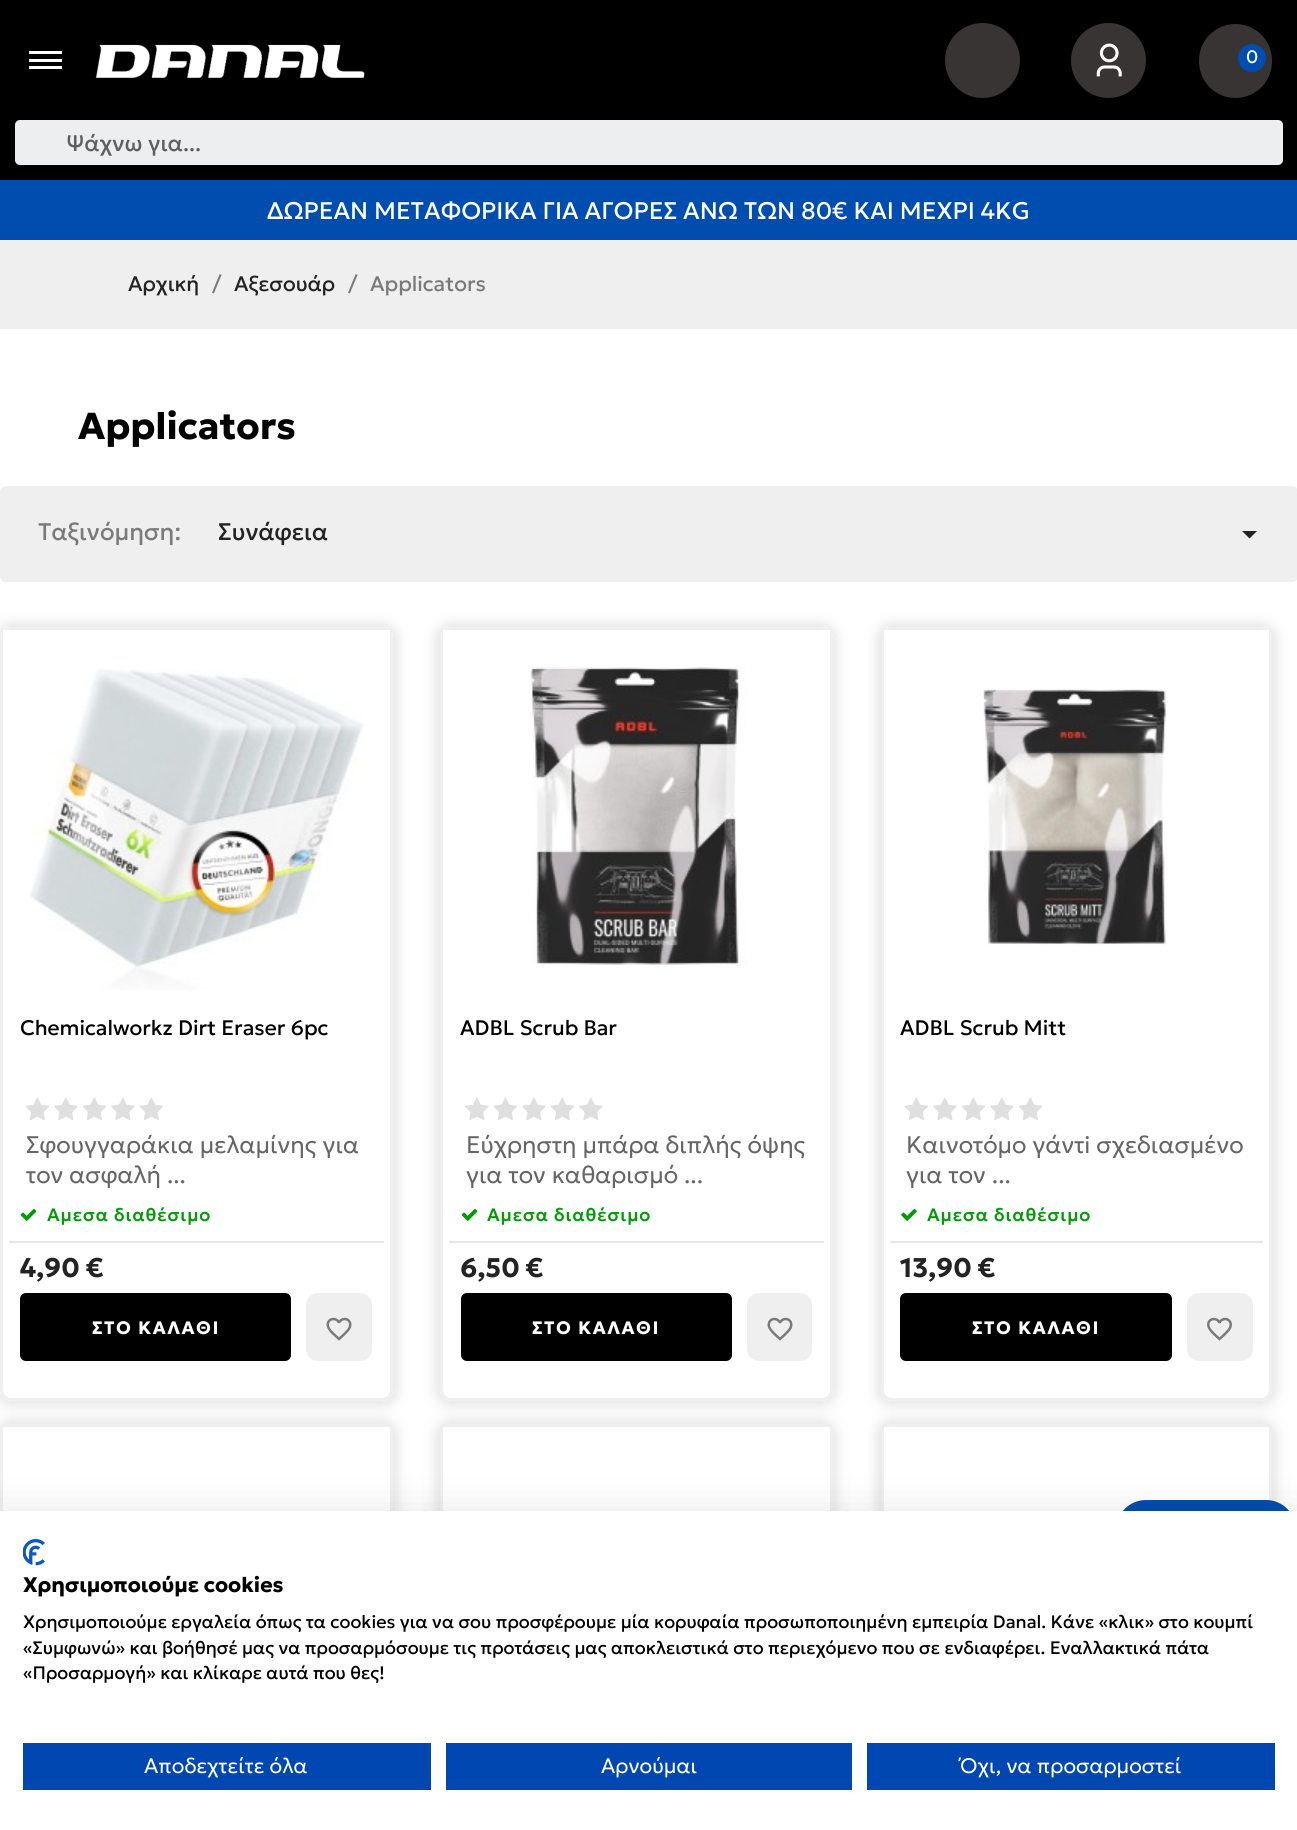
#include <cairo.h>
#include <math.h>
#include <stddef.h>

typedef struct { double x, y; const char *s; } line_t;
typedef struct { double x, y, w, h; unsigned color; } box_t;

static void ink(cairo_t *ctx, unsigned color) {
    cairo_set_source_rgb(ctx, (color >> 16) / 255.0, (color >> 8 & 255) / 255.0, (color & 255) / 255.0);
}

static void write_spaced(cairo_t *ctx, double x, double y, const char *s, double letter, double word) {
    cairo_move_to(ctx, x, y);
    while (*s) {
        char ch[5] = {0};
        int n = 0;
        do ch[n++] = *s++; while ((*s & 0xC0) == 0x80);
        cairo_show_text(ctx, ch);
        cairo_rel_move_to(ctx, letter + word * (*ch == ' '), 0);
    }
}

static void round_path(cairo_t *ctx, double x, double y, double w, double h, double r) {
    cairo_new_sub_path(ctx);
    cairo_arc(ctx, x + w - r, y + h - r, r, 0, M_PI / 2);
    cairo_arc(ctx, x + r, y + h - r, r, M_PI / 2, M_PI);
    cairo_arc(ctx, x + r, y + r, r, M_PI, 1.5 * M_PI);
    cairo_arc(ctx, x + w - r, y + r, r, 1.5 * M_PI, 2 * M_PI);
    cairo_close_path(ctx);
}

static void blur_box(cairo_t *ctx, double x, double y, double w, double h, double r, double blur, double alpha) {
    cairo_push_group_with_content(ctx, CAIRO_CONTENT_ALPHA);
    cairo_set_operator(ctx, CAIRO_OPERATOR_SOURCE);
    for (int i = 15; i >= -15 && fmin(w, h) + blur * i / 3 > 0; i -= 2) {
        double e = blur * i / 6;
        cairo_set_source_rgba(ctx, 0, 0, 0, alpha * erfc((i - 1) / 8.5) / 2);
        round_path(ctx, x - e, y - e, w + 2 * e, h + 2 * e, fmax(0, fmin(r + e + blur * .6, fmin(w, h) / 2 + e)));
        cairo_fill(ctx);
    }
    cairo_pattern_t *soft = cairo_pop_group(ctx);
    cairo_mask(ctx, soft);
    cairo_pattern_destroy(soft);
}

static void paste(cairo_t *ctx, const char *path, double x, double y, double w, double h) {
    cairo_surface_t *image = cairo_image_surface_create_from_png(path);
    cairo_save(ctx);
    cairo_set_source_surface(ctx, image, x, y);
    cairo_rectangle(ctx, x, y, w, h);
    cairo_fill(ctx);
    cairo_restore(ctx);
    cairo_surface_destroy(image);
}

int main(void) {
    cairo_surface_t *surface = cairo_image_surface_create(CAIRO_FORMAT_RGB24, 1297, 1830);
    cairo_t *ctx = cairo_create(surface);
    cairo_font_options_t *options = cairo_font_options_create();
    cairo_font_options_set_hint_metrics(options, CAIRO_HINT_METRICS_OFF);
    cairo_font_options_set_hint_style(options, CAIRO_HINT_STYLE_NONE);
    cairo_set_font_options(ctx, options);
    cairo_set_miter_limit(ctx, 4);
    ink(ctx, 0xFFFFFF);
    cairo_paint(ctx);
    {
        static const box_t items[] = {
            {0, 0, 1297, 180, 0x000000},
            {29, 51, 33, 3, 0xFFFFFF},
            {29, 59, 33, 3, 0xFFFFFF},
            {29, 66, 33, 3, 0xFFFFFF},
        };
        for (size_t i = 0; i < sizeof items / sizeof *items; i++) {
            ink(ctx, items[i].color);
            cairo_rectangle(ctx, items[i].x, items[i].y, items[i].w, items[i].h);
            cairo_fill(ctx);
        }
    }
    paste(ctx, "media/1.png", 95, 44, 270, 34);
    ink(ctx, 0x383434);
    cairo_arc(ctx, 982.5, 60.5, 37.5, 0, 2 * M_PI);
    cairo_fill(ctx);
    cairo_arc(ctx, 1108.5, 60.5, 37.5, 0, 2 * M_PI);
    cairo_fill(ctx);
    paste(ctx, "media/2.png", 1096, 43, 26, 34);
    round_path(ctx, 1199, 24, 73, 74, 36.5);
    cairo_fill(ctx);
    ink(ctx, 0x004DB0);
    cairo_arc(ctx, 1252, 58, 14, 0, 2 * M_PI);
    cairo_fill(ctx);
    cairo_select_font_face(ctx, "Geologica", CAIRO_FONT_SLANT_NORMAL, CAIRO_FONT_WEIGHT_NORMAL);
    cairo_set_font_size(ctx, 18);
    ink(ctx, 0xFFFFFF);
    cairo_move_to(ctx, 1246, 63);
    cairo_show_text(ctx, "0");
    ink(ctx, 0xECEEEF);
    round_path(ctx, 15, 120, 1268, 45, 5);
    cairo_fill(ctx);
    cairo_set_font_size(ctx, 22.5);
    ink(ctx, 0x5E5F60);
    cairo_move_to(ctx, 66, 151);
    cairo_show_text(ctx, "Ψάχνω για...");
    ink(ctx, 0x004DB0);
    cairo_rectangle(ctx, 0, 180, 1297, 60);
    cairo_fill(ctx);
    cairo_set_font_size(ctx, 24);
    ink(ctx, 0xFFFFFF);
    cairo_move_to(ctx, 267, 219);
    cairo_show_text(ctx, "ΔΩΡΕΑΝ ΜΕΤΑΦΟΡΙΚΑ ΓΙΑ ΑΓΟΡΕΣ ΑΝΩ ΤΩΝ 80€ ΚΑΙ ΜΕΧΡΙ 4KG");
    ink(ctx, 0xEFEFEF);
    cairo_rectangle(ctx, 0, 240, 1297, 89);
    cairo_fill(ctx);
    cairo_set_font_size(ctx, 21);
    ink(ctx, 0x232323);
    cairo_move_to(ctx, 128, 291);
    cairo_show_text(ctx, "Αρχική");
    ink(ctx, 0x7A7A7A);
    cairo_move_to(ctx, 212, 291);
    cairo_show_text(ctx, "/");
    ink(ctx, 0x232323);
    cairo_move_to(ctx, 234, 291);
    cairo_show_text(ctx, "Αξεσουάρ");
    ink(ctx, 0x7A7A7A);
    cairo_move_to(ctx, 348, 291);
    cairo_show_text(ctx, "/");
    cairo_move_to(ctx, 370, 291);
    cairo_show_text(ctx, "Applicators");
    cairo_select_font_face(ctx, "Geologica", CAIRO_FONT_SLANT_NORMAL, CAIRO_FONT_WEIGHT_BOLD);
    cairo_set_font_size(ctx, 37.5);
    ink(ctx, 0x000000);
    cairo_move_to(ctx, 78, 439);
    cairo_show_text(ctx, "Applicators");
    ink(ctx, 0xEFEFEF);
    round_path(ctx, 0, 486, 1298, 96, 6);
    cairo_fill(ctx);
    cairo_select_font_face(ctx, "Geologica", CAIRO_FONT_SLANT_NORMAL, CAIRO_FONT_WEIGHT_NORMAL);
    cairo_set_font_size(ctx, 24);
    ink(ctx, 0x7A7A7A);
    cairo_move_to(ctx, 38, 540);
    cairo_show_text(ctx, "Ταξινόμηση:");
    ink(ctx, 0x232323);
    cairo_move_to(ctx, 218, 540);
    cairo_show_text(ctx, "Συνάφεια");
    cairo_new_path(ctx);
    cairo_move_to(ctx, 1242, 531);
    cairo_line_to(ctx, 1257, 531);
    cairo_line_to(ctx, 1249.5, 538.5);
    cairo_close_path(ctx);
    cairo_fill(ctx);
    cairo_save(ctx);
    cairo_set_fill_rule(ctx, CAIRO_FILL_RULE_EVEN_ODD);
    cairo_new_path(ctx);
    cairo_move_to(ctx, 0, 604);
    cairo_line_to(ctx, 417, 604);
    cairo_line_to(ctx, 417, 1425);
    cairo_line_to(ctx, 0, 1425);
    cairo_close_path(ctx);
    cairo_move_to(ctx, 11, 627);
    cairo_line_to(ctx, 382, 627);
    cairo_curve_to(ctx, 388, 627, 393, 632, 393, 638);
    cairo_line_to(ctx, 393, 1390);
    cairo_curve_to(ctx, 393, 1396, 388, 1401, 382, 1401);
    cairo_line_to(ctx, 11, 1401);
    cairo_curve_to(ctx, 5, 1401, 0, 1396, 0, 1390);
    cairo_line_to(ctx, 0, 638);
    cairo_curve_to(ctx, 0, 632, 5, 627, 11, 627);
    cairo_close_path(ctx);
    cairo_clip(ctx);
    ink(ctx, 0xDDDDDD);
    blur_box(ctx, -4, 623, 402, 783, 15, 6, 0.75);
    cairo_restore(ctx);
    round_path(ctx, 1.5, 628.5, 390, 771, 9.5);
    ink(ctx, 0xEFEFEF);
    cairo_set_line_width(ctx, 3);
    cairo_stroke(ctx);
    ink(ctx, 0xFFFFFF);
    cairo_rectangle(ctx, 3, 630, 387, 7);
    cairo_fill(ctx);
    paste(ctx, "media/3.png", 30, 668, 333, 322);
    cairo_set_font_size(ctx, 21);
    ink(ctx, 0x000000);
    cairo_move_to(ctx, 20, 1035);
    cairo_show_text(ctx, "Chemicalworkz Dirt Eraser 6pc");
    paste(ctx, "media/4.png", 25, 1097, 24, 23);
    paste(ctx, "media/5.png", 54, 1097, 24, 23);
    paste(ctx, "media/4.png", 82, 1097, 24, 23);
    paste(ctx, "media/5.png", 111, 1097, 24, 23);
    paste(ctx, "media/4.png", 139, 1097, 24, 23);
    cairo_select_font_face(ctx, "Geologica Light", CAIRO_FONT_SLANT_NORMAL, CAIRO_FONT_WEIGHT_NORMAL);
    cairo_set_font_size(ctx, 24);
    ink(ctx, 0x666666);
    cairo_move_to(ctx, 26, 1153);
    cairo_show_text(ctx, "Σφουγγαράκια μελαμίνης για");
    cairo_move_to(ctx, 26, 1183);
    cairo_show_text(ctx, "τον ασφαλή ...");
    paste(ctx, "media/6.png", 20, 1209, 17, 12);
    cairo_select_font_face(ctx, "Geologica Medium", CAIRO_FONT_SLANT_NORMAL, CAIRO_FONT_WEIGHT_NORMAL);
    cairo_set_font_size(ctx, 18);
    ink(ctx, 0x009B05);
    write_spaced(ctx, 47, 1221, "Αμεσα διαθέσιμο", 0.9, 0);
    ink(ctx, 0xE6E6E6);
    cairo_rectangle(ctx, 9, 1241, 375, 2);
    cairo_fill(ctx);
    cairo_select_font_face(ctx, "Geologica", CAIRO_FONT_SLANT_NORMAL, CAIRO_FONT_WEIGHT_BOLD);
    cairo_set_font_size(ctx, 27);
    ink(ctx, 0x232323);
    cairo_move_to(ctx, 20, 1277);
    cairo_show_text(ctx, "4,90 €");
    ink(ctx, 0x000000);
    round_path(ctx, 20, 1293, 271, 68, 6);
    cairo_fill(ctx);
    cairo_set_font_size(ctx, 18);
    ink(ctx, 0xFFFFFF);
    write_spaced(ctx, 92, 1334, "ΣΤΟ ΚΑΛΑΘΙ", 1.5, 0);
    ink(ctx, 0xEFEFEF);
    round_path(ctx, 306, 1293, 66, 68, 12);
    cairo_fill(ctx);
    paste(ctx, "media/7.png", 326, 1317, 26, 24);
    cairo_save(ctx);
    cairo_set_fill_rule(ctx, CAIRO_FILL_RULE_EVEN_ODD);
    cairo_new_path(ctx);
    cairo_move_to(ctx, 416, 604);
    cairo_line_to(ctx, 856, 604);
    cairo_line_to(ctx, 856, 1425);
    cairo_line_to(ctx, 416, 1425);
    cairo_close_path(ctx);
    cairo_move_to(ctx, 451, 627);
    cairo_line_to(ctx, 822, 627);
    cairo_curve_to(ctx, 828, 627, 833, 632, 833, 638);
    cairo_line_to(ctx, 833, 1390);
    cairo_curve_to(ctx, 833, 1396, 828, 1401, 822, 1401);
    cairo_line_to(ctx, 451, 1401);
    cairo_curve_to(ctx, 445, 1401, 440, 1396, 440, 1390);
    cairo_line_to(ctx, 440, 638);
    cairo_curve_to(ctx, 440, 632, 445, 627, 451, 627);
    cairo_close_path(ctx);
    cairo_clip(ctx);
    ink(ctx, 0xDDDDDD);
    blur_box(ctx, 435, 623, 402, 783, 15, 6, 0.75);
    cairo_restore(ctx);
    round_path(ctx, 441.5, 628.5, 390, 771, 9.5);
    cairo_stroke(ctx);
    ink(ctx, 0xFFFFFF);
    cairo_rectangle(ctx, 443, 630, 387, 7);
    cairo_fill(ctx);
    paste(ctx, "media/8.png", 530, 666, 217, 299);
    cairo_select_font_face(ctx, "Geologica", CAIRO_FONT_SLANT_NORMAL, CAIRO_FONT_WEIGHT_NORMAL);
    cairo_set_font_size(ctx, 21);
    ink(ctx, 0x000000);
    cairo_move_to(ctx, 460, 1035);
    cairo_show_text(ctx, "ADBL Scrub Bar");
    paste(ctx, "media/5.png", 465, 1097, 24, 23);
    paste(ctx, "media/4.png", 493, 1097, 24, 23);
    paste(ctx, "media/5.png", 522, 1097, 24, 23);
    paste(ctx, "media/4.png", 550, 1097, 24, 23);
    paste(ctx, "media/5.png", 579, 1097, 24, 23);
    cairo_select_font_face(ctx, "Geologica Light", CAIRO_FONT_SLANT_NORMAL, CAIRO_FONT_WEIGHT_NORMAL);
    cairo_set_font_size(ctx, 24);
    ink(ctx, 0x666666);
    cairo_move_to(ctx, 466, 1153);
    cairo_show_text(ctx, "Εύχρηστη μπάρα διπλής όψης");
    cairo_move_to(ctx, 466, 1183);
    cairo_show_text(ctx, "για τον καθαρισμό ...");
    paste(ctx, "media/6.png", 461, 1209, 17, 12);
    cairo_select_font_face(ctx, "Geologica Medium", CAIRO_FONT_SLANT_NORMAL, CAIRO_FONT_WEIGHT_NORMAL);
    cairo_set_font_size(ctx, 18);
    ink(ctx, 0x009B05);
    write_spaced(ctx, 487, 1221, "Αμεσα διαθέσιμο", 0.9, 0);
    ink(ctx, 0xE6E6E6);
    cairo_rectangle(ctx, 449, 1241, 375, 2);
    cairo_fill(ctx);
    cairo_select_font_face(ctx, "Geologica", CAIRO_FONT_SLANT_NORMAL, CAIRO_FONT_WEIGHT_BOLD);
    cairo_set_font_size(ctx, 27);
    ink(ctx, 0x232323);
    cairo_move_to(ctx, 460, 1277);
    cairo_show_text(ctx, "6,50 €");
    ink(ctx, 0x000000);
    round_path(ctx, 461, 1293, 271, 68, 6);
    cairo_fill(ctx);
    cairo_set_font_size(ctx, 18);
    ink(ctx, 0xFFFFFF);
    write_spaced(ctx, 532, 1334, "ΣΤΟ ΚΑΛΑΘΙ", 1.5, 0);
    ink(ctx, 0xEFEFEF);
    round_path(ctx, 747, 1293, 65, 68, 12);
    cairo_fill(ctx);
    paste(ctx, "media/7.png", 767, 1317, 26, 24);
    cairo_save(ctx);
    cairo_set_fill_rule(ctx, CAIRO_FILL_RULE_EVEN_ODD);
    cairo_new_path(ctx);
    cairo_move_to(ctx, 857, 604);
    cairo_line_to(ctx, 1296, 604);
    cairo_line_to(ctx, 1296, 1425);
    cairo_line_to(ctx, 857, 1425);
    cairo_close_path(ctx);
    cairo_move_to(ctx, 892, 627);
    cairo_line_to(ctx, 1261, 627);
    cairo_curve_to(ctx, 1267, 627, 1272, 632, 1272, 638);
    cairo_line_to(ctx, 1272, 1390);
    cairo_curve_to(ctx, 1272, 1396, 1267, 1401, 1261, 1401);
    cairo_line_to(ctx, 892, 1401);
    cairo_curve_to(ctx, 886, 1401, 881, 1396, 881, 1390);
    cairo_line_to(ctx, 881, 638);
    cairo_curve_to(ctx, 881, 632, 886, 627, 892, 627);
    cairo_close_path(ctx);
    cairo_clip(ctx);
    ink(ctx, 0xDDDDDD);
    blur_box(ctx, 876, 623, 401, 783, 15, 6, 0.75);
    cairo_restore(ctx);
    round_path(ctx, 882.5, 628.5, 388, 771, 9.5);
    cairo_stroke(ctx);
    ink(ctx, 0xFFFFFF);
    cairo_rectangle(ctx, 884, 630, 385, 7);
    cairo_fill(ctx);
    paste(ctx, "media/9.png", 983, 689, 184, 257);
    cairo_select_font_face(ctx, "Geologica", CAIRO_FONT_SLANT_NORMAL, CAIRO_FONT_WEIGHT_NORMAL);
    cairo_set_font_size(ctx, 21);
    ink(ctx, 0x000000);
    cairo_move_to(ctx, 900, 1035);
    cairo_show_text(ctx, "ADBL Scrub Mitt");
    paste(ctx, "media/4.png", 904, 1097, 24, 23);
    paste(ctx, "media/5.png", 933, 1097, 24, 23);
    paste(ctx, "media/4.png", 961, 1097, 24, 23);
    paste(ctx, "media/5.png", 990, 1097, 24, 23);
    paste(ctx, "media/4.png", 1018, 1097, 24, 23);
    cairo_select_font_face(ctx, "Geologica Light", CAIRO_FONT_SLANT_NORMAL, CAIRO_FONT_WEIGHT_NORMAL);
    cairo_set_font_size(ctx, 24);
    ink(ctx, 0x666666);
    cairo_move_to(ctx, 906, 1153);
    cairo_show_text(ctx, "Kαινοτόμο γάντi σχεδιασμένο");
    cairo_move_to(ctx, 906, 1183);
    cairo_show_text(ctx, "για τον ...");
    paste(ctx, "media/10.png", 901, 1208, 16, 13);
    cairo_select_font_face(ctx, "Geologica Medium", CAIRO_FONT_SLANT_NORMAL, CAIRO_FONT_WEIGHT_NORMAL);
    cairo_set_font_size(ctx, 18);
    ink(ctx, 0x009B05);
    write_spaced(ctx, 927, 1221, "Αμεσα διαθέσιμο", 0.9, 0);
    ink(ctx, 0xE6E6E6);
    cairo_rectangle(ctx, 890, 1241, 373, 2);
    cairo_fill(ctx);
    cairo_select_font_face(ctx, "Geologica", CAIRO_FONT_SLANT_NORMAL, CAIRO_FONT_WEIGHT_BOLD);
    cairo_set_font_size(ctx, 27);
    ink(ctx, 0x232323);
    cairo_move_to(ctx, 900, 1277);
    cairo_show_text(ctx, "13,90 €");
    ink(ctx, 0x000000);
    round_path(ctx, 900, 1293, 272, 68, 6);
    cairo_fill(ctx);
    cairo_set_font_size(ctx, 18);
    ink(ctx, 0xFFFFFF);
    write_spaced(ctx, 972, 1334, "ΣΤΟ ΚΑΛΑΘΙ", 1.5, 0);
    ink(ctx, 0xEFEFEF);
    round_path(ctx, 1187, 1293, 66, 68, 12);
    cairo_fill(ctx);
    paste(ctx, "media/11.png", 1207, 1317, 25, 24);
    ink(ctx, 0xDDDDDD);
    blur_box(ctx, -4, 1419, 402, 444, 15, 6, 0.75);
    round_path(ctx, 1.5, 1425.5, 390, 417, 9.5);
    ink(ctx, 0xEFEFEF);
    cairo_stroke(ctx);
    ink(ctx, 0xFFFFFF);
    cairo_rectangle(ctx, 3, 1427, 387, 84);
    cairo_fill(ctx);
    ink(ctx, 0xDDDDDD);
    blur_box(ctx, 435, 1419, 402, 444, 15, 6, 0.75);
    round_path(ctx, 441.5, 1425.5, 390, 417, 9.5);
    ink(ctx, 0xEFEFEF);
    cairo_stroke(ctx);
    ink(ctx, 0xFFFFFF);
    cairo_rectangle(ctx, 443, 1427, 387, 84);
    cairo_fill(ctx);
    ink(ctx, 0xDDDDDD);
    blur_box(ctx, 876, 1419, 401, 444, 15, 6, 0.75);
    round_path(ctx, 882.5, 1425.5, 388, 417, 9.5);
    ink(ctx, 0xEFEFEF);
    cairo_stroke(ctx);
    ink(ctx, 0xFFFFFF);
    cairo_rectangle(ctx, 884, 1427, 385, 84);
    cairo_fill(ctx);
    ink(ctx, 0x004DB0);
    round_path(ctx, 1116, 1500, 180, 60, 30);
    cairo_fill(ctx);
    ink(ctx, 0x000000);
    blur_box(ctx, 0, 1511, 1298, 319, 0, 18, 0.1);
    ink(ctx, 0xFFFFFF);
    cairo_rectangle(ctx, 0, 1511, 1297, 319);
    cairo_fill(ctx);
    paste(ctx, "media/12.png", 23, 1539, 22, 27);
    cairo_set_font_size(ctx, 21);
    ink(ctx, 0x000000);
    cairo_move_to(ctx, 23, 1592);
    cairo_show_text(ctx, "Χρησιμοποιούμε cookies");
    cairo_select_font_face(ctx, "Geologica", CAIRO_FONT_SLANT_NORMAL, CAIRO_FONT_WEIGHT_NORMAL);
    cairo_set_font_size(ctx, 18);
    {
        static const line_t items[] = {
            {23, 1628, "Χρησιμοποιούμε εργαλεία όπως τα cookies για να σου προσφέρουμε μία κορυφαία προσωποποιημένη εμπειρία Danal. Κάνε «κλικ» στο κουμπί"},
            {23, 1654, "«Συμφωνώ» και βοήθησέ μας να προσαρμόσουμε τις προτάσεις μας αποκλειστικά στο περιεχόμενο που σε ενδιαφέρει. Εναλλακτικά πάτα"},
            {23, 1679, "«Προσαρμογή» και κλίκαρε αυτά που θες!"},
        };
        for (size_t i = 0; i < sizeof items / sizeof *items; i++) {
            cairo_move_to(ctx, items[i].x, items[i].y);
            cairo_show_text(ctx, items[i].s);
        }
    }
    ink(ctx, 0x0047B2);
    cairo_rectangle(ctx, 23, 1743, 408, 47);
    cairo_fill(ctx);
    cairo_select_font_face(ctx, "Geologica Light", CAIRO_FONT_SLANT_NORMAL, CAIRO_FONT_WEIGHT_NORMAL);
    cairo_set_font_size(ctx, 21);
    ink(ctx, 0xFFFFFF);
    cairo_move_to(ctx, 144, 1773);
    cairo_show_text(ctx, "Αποδεχτείτε όλα");
    ink(ctx, 0x0047B2);
    cairo_rectangle(ctx, 446, 1743, 406, 47);
    cairo_fill(ctx);
    ink(ctx, 0xFFFFFF);
    cairo_move_to(ctx, 601, 1773);
    cairo_show_text(ctx, "Αρνούμαι");
    ink(ctx, 0x0047B2);
    cairo_rectangle(ctx, 867, 1743, 408, 47);
    cairo_fill(ctx);
    ink(ctx, 0xFFFFFF);
    cairo_move_to(ctx, 960, 1773);
    cairo_show_text(ctx, "Όχι, να προσαρμοστεί");
    cairo_surface_write_to_png(surface, "image.png");
    cairo_font_options_destroy(options);
    cairo_destroy(ctx);
    cairo_surface_destroy(surface);
    return 0;
}
